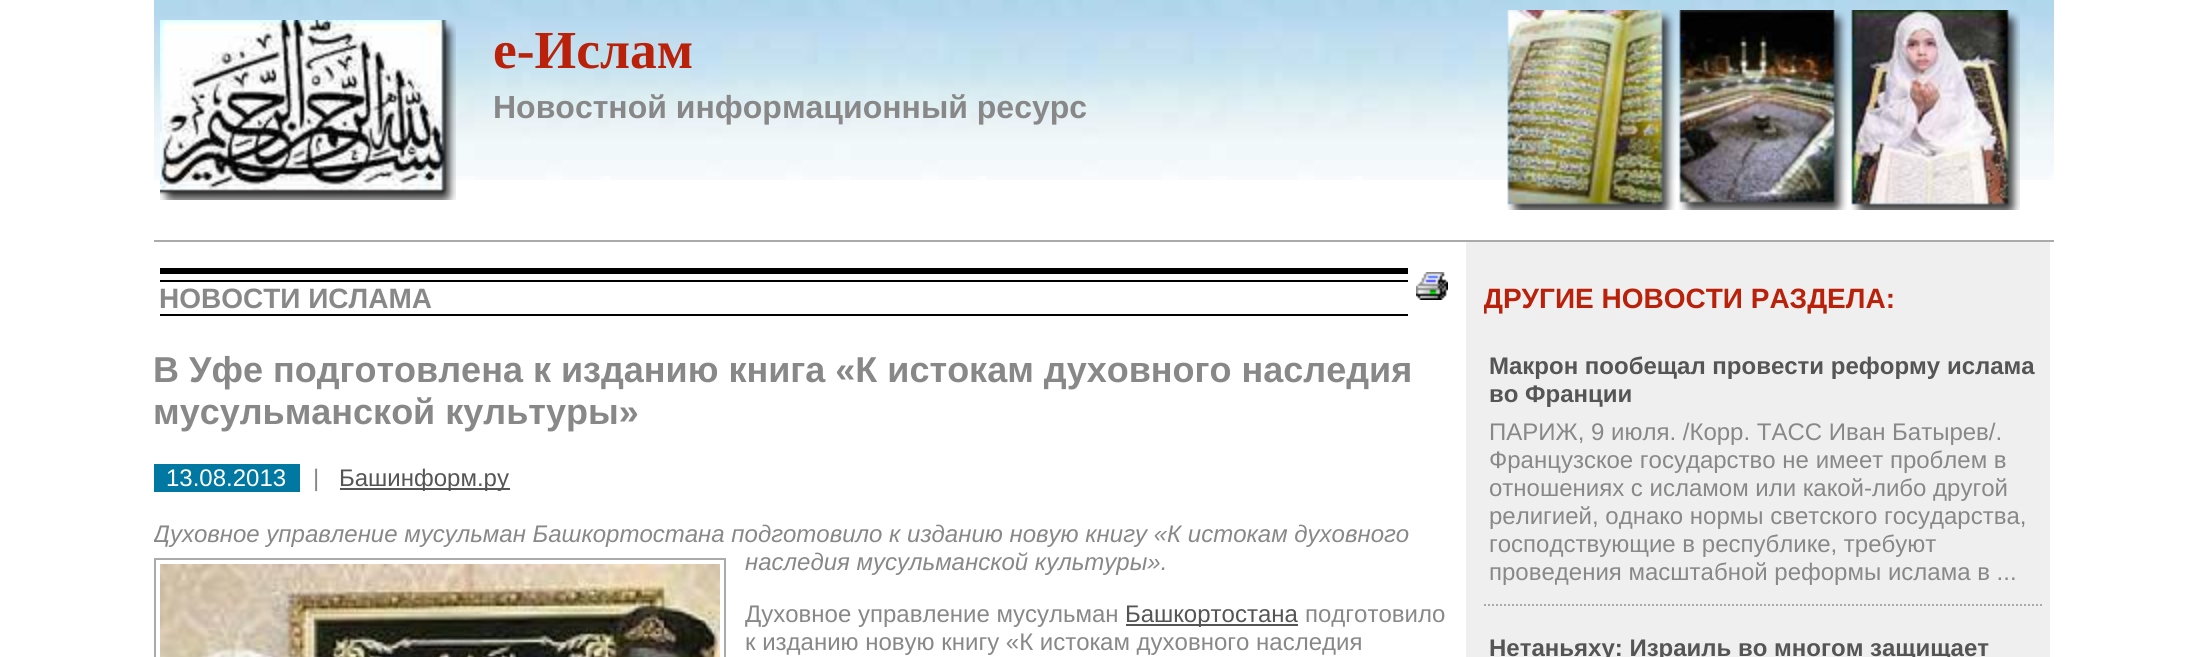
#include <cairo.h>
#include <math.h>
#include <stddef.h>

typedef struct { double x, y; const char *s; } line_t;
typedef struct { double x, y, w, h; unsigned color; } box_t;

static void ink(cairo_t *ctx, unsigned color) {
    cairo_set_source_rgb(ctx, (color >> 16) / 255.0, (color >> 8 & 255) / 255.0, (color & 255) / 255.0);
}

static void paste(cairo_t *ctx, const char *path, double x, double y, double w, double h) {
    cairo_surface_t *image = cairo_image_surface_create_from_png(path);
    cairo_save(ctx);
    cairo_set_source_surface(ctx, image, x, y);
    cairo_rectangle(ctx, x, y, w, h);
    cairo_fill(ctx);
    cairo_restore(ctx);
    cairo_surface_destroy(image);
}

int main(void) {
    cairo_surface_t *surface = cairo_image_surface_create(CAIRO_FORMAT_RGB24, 2205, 657);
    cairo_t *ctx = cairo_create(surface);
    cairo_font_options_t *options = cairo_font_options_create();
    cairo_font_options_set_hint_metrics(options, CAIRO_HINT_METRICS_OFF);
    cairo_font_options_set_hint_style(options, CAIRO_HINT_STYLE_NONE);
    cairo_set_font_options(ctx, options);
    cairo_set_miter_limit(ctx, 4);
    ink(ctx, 0xFFFFFF);
    cairo_paint(ctx);
    paste(ctx, "media/1.png", 154, 0, 1900, 180);
    ink(ctx, 0xAAAAAA);
    cairo_rectangle(ctx, 154, 240, 1900, 2);
    cairo_fill(ctx);
    paste(ctx, "media/2.png", 160, 20, 296, 180);
    cairo_select_font_face(ctx, "Liberation Serif", CAIRO_FONT_SLANT_NORMAL, CAIRO_FONT_WEIGHT_BOLD);
    cairo_set_font_size(ctx, 53.5);
    ink(ctx, 0xBA210A);
    cairo_move_to(ctx, 493, 68);
    cairo_show_text(ctx, "e-Ислам");
    cairo_select_font_face(ctx, "Liberation Sans", CAIRO_FONT_SLANT_NORMAL, CAIRO_FONT_WEIGHT_BOLD);
    cairo_set_font_size(ctx, 32);
    ink(ctx, 0x888888);
    cairo_move_to(ctx, 493, 118);
    cairo_show_text(ctx, "Новостной информационный ресурс");
    paste(ctx, "media/3.png", 1507, 10, 513, 200);
    {
        static const box_t items[] = {
            {1466, 242, 584, 415, 0xEFEFEF},
            {160, 268, 1248, 6, 0x000000},
            {160, 280, 1248, 2, 0x000000},
            {160, 314, 1248, 2, 0x000000},
        };
        for (size_t i = 0; i < sizeof items / sizeof *items; i++) {
            ink(ctx, items[i].color);
            cairo_rectangle(ctx, items[i].x, items[i].y, items[i].w, items[i].h);
            cairo_fill(ctx);
        }
    }
    cairo_set_font_size(ctx, 28);
    ink(ctx, 0x888888);
    cairo_move_to(ctx, 159, 308);
    cairo_show_text(ctx, "НОВОСТИ ИСЛАМА");
    paste(ctx, "media/4.png", 1416, 272, 32, 28);
    cairo_set_font_size(ctx, 36);
    cairo_move_to(ctx, 153, 382);
    cairo_show_text(ctx, "В Уфе подготовлена к изданию книга «К истокам духовного наследия");
    cairo_move_to(ctx, 153, 424);
    cairo_show_text(ctx, "мусульманской культуры»");
    ink(ctx, 0x0078A1);
    cairo_rectangle(ctx, 154, 464, 146, 28);
    cairo_fill(ctx);
    cairo_select_font_face(ctx, "Liberation Sans", CAIRO_FONT_SLANT_NORMAL, CAIRO_FONT_WEIGHT_NORMAL);
    cairo_set_font_size(ctx, 24);
    ink(ctx, 0xFFFFFF);
    cairo_move_to(ctx, 166, 486);
    cairo_show_text(ctx, "13.08.2013");
    ink(ctx, 0x888888);
    cairo_move_to(ctx, 313, 486);
    cairo_show_text(ctx, "|");
    ink(ctx, 0x555555);
    cairo_rectangle(ctx, 340, 488, 170, 2);
    cairo_fill(ctx);
    cairo_move_to(ctx, 339, 486);
    cairo_show_text(ctx, "Башинформ.ру");
    cairo_save(ctx);
    cairo_rectangle(ctx, 154, 0, 1900, 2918);
    cairo_clip(ctx);
    cairo_select_font_face(ctx, "Liberation Sans", CAIRO_FONT_SLANT_ITALIC, CAIRO_FONT_WEIGHT_NORMAL);
    ink(ctx, 0x888888);
    cairo_move_to(ctx, 153, 542);
    cairo_show_text(ctx, "Духовное управление мусульман Башкортостана подготовило к изданию новую книгу «К истокам духовного");
    cairo_restore(ctx);
    cairo_rectangle(ctx, 155, 559, 570, 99);
    ink(ctx, 0xAAAAAA);
    cairo_stroke(ctx);
    paste(ctx, "media/5.png", 160, 564, 560, 93);
    cairo_select_font_face(ctx, "Liberation Sans", CAIRO_FONT_SLANT_ITALIC, CAIRO_FONT_WEIGHT_NORMAL);
    ink(ctx, 0x888888);
    cairo_move_to(ctx, 745, 570);
    cairo_show_text(ctx, "наследия мусульманской культуры».");
    cairo_select_font_face(ctx, "Liberation Sans", CAIRO_FONT_SLANT_NORMAL, CAIRO_FONT_WEIGHT_NORMAL);
    cairo_move_to(ctx, 745, 622);
    cairo_show_text(ctx, "Духовное управление мусульман");
    ink(ctx, 0x555555);
    cairo_rectangle(ctx, 1126, 624, 172, 2);
    cairo_fill(ctx);
    cairo_move_to(ctx, 1125, 622);
    cairo_show_text(ctx, "Башкортостана");
    ink(ctx, 0x888888);
    cairo_move_to(ctx, 1305, 622);
    cairo_show_text(ctx, "подготовило");
    cairo_move_to(ctx, 745, 650);
    cairo_show_text(ctx, "к изданию новую книгу «К истокам духовного наследия");
    cairo_save(ctx);
    cairo_rectangle(ctx, 1484, 262, 560, 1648);
    cairo_clip(ctx);
    cairo_select_font_face(ctx, "Liberation Sans", CAIRO_FONT_SLANT_NORMAL, CAIRO_FONT_WEIGHT_BOLD);
    cairo_set_font_size(ctx, 28);
    ink(ctx, 0xBA210A);
    cairo_move_to(ctx, 1483, 308);
    cairo_show_text(ctx, "ДРУГИЕ НОВОСТИ РАЗДЕЛА:");
    cairo_restore(ctx);
    cairo_new_path(ctx);
    cairo_move_to(ctx, 1484, 605);
    cairo_line_to(ctx, 2044, 605);
    ink(ctx, 0xAAAAAA);
    cairo_set_dash(ctx, (double[]){2, 2}, 2, 0);
    cairo_stroke(ctx);
    cairo_select_font_face(ctx, "Liberation Sans", CAIRO_FONT_SLANT_NORMAL, CAIRO_FONT_WEIGHT_BOLD);
    ink(ctx, 0x555555);
    cairo_move_to(ctx, 1489, 374);
    cairo_show_text(ctx, "Макрон пообещал провести реформу ислама");
    cairo_move_to(ctx, 1489, 402);
    cairo_show_text(ctx, "во Франции");
    cairo_select_font_face(ctx, "Liberation Sans", CAIRO_FONT_SLANT_NORMAL, CAIRO_FONT_WEIGHT_NORMAL);
    ink(ctx, 0x888888);
    {
        static const line_t items[] = {
            {1489, 440, "ПАРИЖ, 9 июля. /Корр. ТАСС Иван Батырев/."},
            {1489, 468, "Французское государство не имеет проблем в"},
            {1489, 496, "отношениях с исламом или какой-либо другой"},
            {1489, 524, "религией, однако нормы светского государства,"},
            {1489, 552, "господствующие в республике, требуют"},
            {1489, 580, "проведения масштабной реформы ислама в ..."},
        };
        for (size_t i = 0; i < sizeof items / sizeof *items; i++) {
            cairo_move_to(ctx, items[i].x, items[i].y);
            cairo_show_text(ctx, items[i].s);
        }
    }
    cairo_select_font_face(ctx, "Liberation Sans", CAIRO_FONT_SLANT_NORMAL, CAIRO_FONT_WEIGHT_BOLD);
    ink(ctx, 0x555555);
    cairo_move_to(ctx, 1489, 656);
    cairo_show_text(ctx, "Нетаньяху: Израиль во многом защищает");
    cairo_surface_write_to_png(surface, "image.png");
    cairo_font_options_destroy(options);
    cairo_destroy(ctx);
    cairo_surface_destroy(surface);
    return 0;
}
